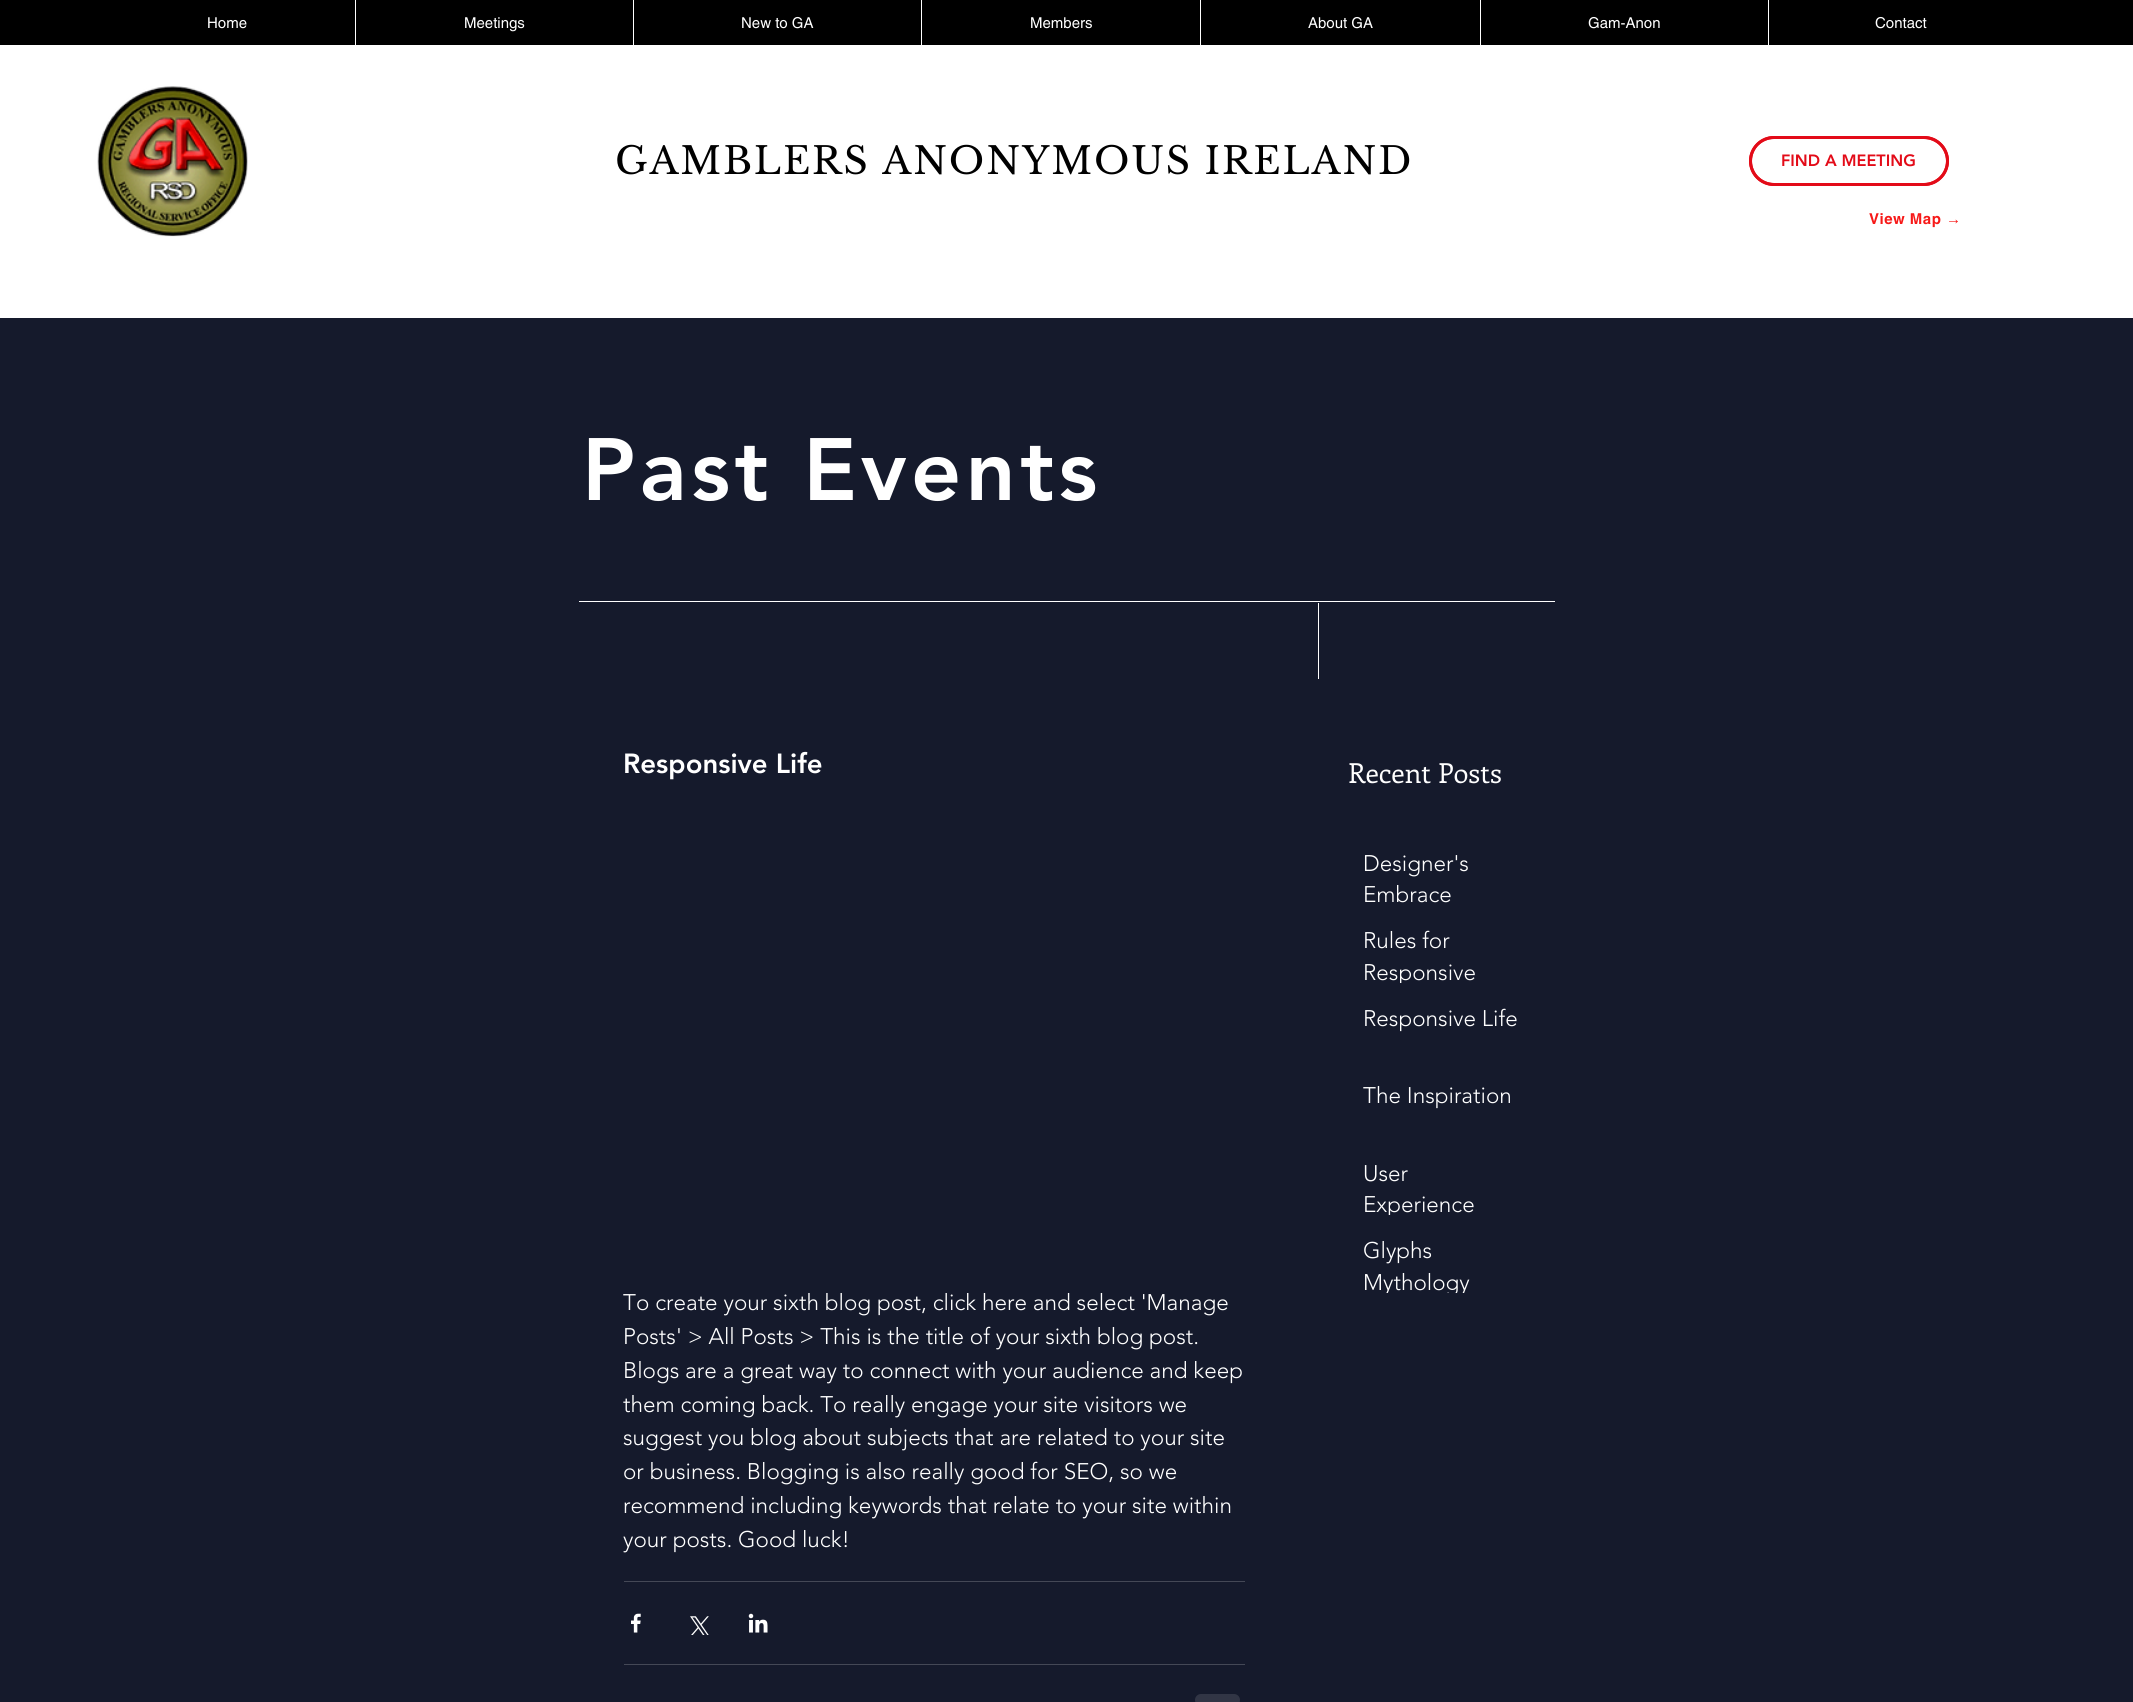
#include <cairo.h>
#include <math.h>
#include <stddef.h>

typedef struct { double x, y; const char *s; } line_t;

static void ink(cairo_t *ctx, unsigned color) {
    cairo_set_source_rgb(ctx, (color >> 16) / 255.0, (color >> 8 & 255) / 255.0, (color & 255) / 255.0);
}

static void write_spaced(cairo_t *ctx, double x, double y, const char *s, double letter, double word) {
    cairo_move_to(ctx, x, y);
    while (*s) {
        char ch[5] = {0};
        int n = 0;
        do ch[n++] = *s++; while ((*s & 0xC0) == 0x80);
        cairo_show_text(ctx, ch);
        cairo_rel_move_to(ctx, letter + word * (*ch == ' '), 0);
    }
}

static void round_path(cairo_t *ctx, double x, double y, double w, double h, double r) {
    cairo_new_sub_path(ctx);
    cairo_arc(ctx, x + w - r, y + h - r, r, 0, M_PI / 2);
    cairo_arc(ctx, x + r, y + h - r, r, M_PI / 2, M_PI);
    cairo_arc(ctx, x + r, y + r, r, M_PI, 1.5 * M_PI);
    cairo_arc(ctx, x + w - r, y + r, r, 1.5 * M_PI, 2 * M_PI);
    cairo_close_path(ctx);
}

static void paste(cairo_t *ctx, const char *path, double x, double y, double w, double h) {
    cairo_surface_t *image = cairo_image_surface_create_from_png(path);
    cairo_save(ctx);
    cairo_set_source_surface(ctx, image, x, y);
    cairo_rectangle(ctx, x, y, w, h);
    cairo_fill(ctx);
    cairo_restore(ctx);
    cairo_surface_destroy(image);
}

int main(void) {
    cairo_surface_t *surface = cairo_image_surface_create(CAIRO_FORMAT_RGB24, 2133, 1702);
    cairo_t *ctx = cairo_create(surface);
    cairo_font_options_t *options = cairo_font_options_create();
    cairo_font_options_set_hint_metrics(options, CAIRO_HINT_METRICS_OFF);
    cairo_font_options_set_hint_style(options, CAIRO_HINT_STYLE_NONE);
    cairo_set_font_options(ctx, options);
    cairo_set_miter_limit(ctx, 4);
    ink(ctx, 0x151A2C);
    cairo_paint(ctx);
    ink(ctx, 0x000000);
    cairo_rectangle(ctx, 0, 0, 2133, 45);
    cairo_fill(ctx);
    cairo_select_font_face(ctx, "helvetica", CAIRO_FONT_SLANT_NORMAL, CAIRO_FONT_WEIGHT_NORMAL);
    cairo_set_font_size(ctx, 15);
    ink(ctx, 0xFFFFFF);
    cairo_move_to(ctx, 207, 28);
    cairo_show_text(ctx, "Home");
    cairo_rectangle(ctx, 355, 0, 1, 45);
    cairo_fill(ctx);
    cairo_move_to(ctx, 464, 28);
    cairo_show_text(ctx, "Meetings");
    cairo_rectangle(ctx, 633, 0, 1, 45);
    cairo_fill(ctx);
    cairo_move_to(ctx, 741, 28);
    cairo_show_text(ctx, "New to GA");
    cairo_rectangle(ctx, 921, 0, 1, 45);
    cairo_fill(ctx);
    cairo_move_to(ctx, 1030, 28);
    cairo_show_text(ctx, "Members");
    cairo_rectangle(ctx, 1200, 0, 1, 45);
    cairo_fill(ctx);
    cairo_move_to(ctx, 1308, 28);
    cairo_show_text(ctx, "About GA");
    cairo_rectangle(ctx, 1480, 0, 1, 45);
    cairo_fill(ctx);
    cairo_move_to(ctx, 1588, 28);
    cairo_show_text(ctx, "Gam-Anon");
    cairo_rectangle(ctx, 1768, 0, 1, 45);
    cairo_fill(ctx);
    cairo_move_to(ctx, 1875, 28);
    cairo_show_text(ctx, "Contact");
    cairo_rectangle(ctx, 0, 45, 2133, 273);
    cairo_fill(ctx);
    paste(ctx, "media/1.png", 97, 86, 151, 151);
    cairo_select_font_face(ctx, "Libre Baskerville", CAIRO_FONT_SLANT_NORMAL, CAIRO_FONT_WEIGHT_NORMAL);
    cairo_set_font_size(ctx, 37.5);
    ink(ctx, 0x000000);
    write_spaced(ctx, 615, 174, "GAMBLERS ANONYMOUS IRELAND", 1.9, 0);
    round_path(ctx, 1750.5, 137.5, 197, 47, 23.5);
    ink(ctx, 0xE30B18);
    cairo_set_line_width(ctx, 3);
    cairo_stroke(ctx);
    round_path(ctx, 1750.5, 137.5, 197, 47, 23.5);
    cairo_stroke(ctx);
    cairo_select_font_face(ctx, "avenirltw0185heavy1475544 Black", CAIRO_FONT_SLANT_NORMAL, CAIRO_FONT_WEIGHT_NORMAL);
    cairo_set_font_size(ctx, 16.25);
    cairo_move_to(ctx, 1781, 166);
    cairo_show_text(ctx, "FIND A MEETING");
    cairo_select_font_face(ctx, "helvetica", CAIRO_FONT_SLANT_NORMAL, CAIRO_FONT_WEIGHT_BOLD);
    cairo_set_font_size(ctx, 15);
    ink(ctx, 0xF71918);
    write_spaced(ctx, 1869, 224, "View Map", 0.5, 0);
    cairo_select_font_face(ctx, "Liberation Sans", CAIRO_FONT_SLANT_NORMAL, CAIRO_FONT_WEIGHT_NORMAL);
    write_spaced(ctx, 1946, 224, "→", 0.5, 0);
    cairo_select_font_face(ctx, "avenirltw0185heavy1475544 Black", CAIRO_FONT_SLANT_NORMAL, CAIRO_FONT_WEIGHT_NORMAL);
    cairo_set_font_size(ctx, 87.5);
    ink(ctx, 0xFFFFFF);
    write_spaced(ctx, 582, 500, "Past Events", 4.4, 0);
    cairo_rectangle(ctx, 579, 601, 976, 1);
    cairo_fill(ctx);
    cairo_rectangle(ctx, 1318, 603, 1, 76);
    cairo_fill(ctx);
    cairo_set_font_size(ctx, 27.5);
    cairo_move_to(ctx, 623, 773);
    cairo_show_text(ctx, "Responsive Life");
    cairo_select_font_face(ctx, "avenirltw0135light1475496 Light", CAIRO_FONT_SLANT_NORMAL, CAIRO_FONT_WEIGHT_NORMAL);
    cairo_set_font_size(ctx, 22.5);
    {
        static const line_t items[] = {
            {623, 1310, "To create your sixth blog post, click here and select 'Manage"},
            {623, 1344, "Posts' > All Posts > This is the title of your sixth blog post."},
            {623, 1378, "Blogs are a great way to connect with your audience and keep"},
            {623, 1412, "them coming back. To really engage your site visitors we"},
            {623, 1445, "suggest you blog about subjects that are related to your site"},
            {623, 1479, "or business. Blogging is also really good for SEO, so we"},
            {623, 1513, "recommend including keywords that relate to your site within"},
            {623, 1547, "your posts. Good luck!"},
        };
        for (size_t i = 0; i < sizeof items / sizeof *items; i++) {
            cairo_move_to(ctx, items[i].x, items[i].y);
            cairo_show_text(ctx, items[i].s);
        }
    }
    ink(ctx, 0x444856);
    cairo_rectangle(ctx, 624, 1581, 621, 1);
    cairo_fill(ctx);
    paste(ctx, "media/2.png", 631, 1613, 10, 20);
    paste(ctx, "media/3.png", 690, 1616, 19, 19);
    paste(ctx, "media/4.png", 748, 1613, 20, 20);
    cairo_rectangle(ctx, 624, 1664, 621, 1);
    cairo_fill(ctx);
    ink(ctx, 0x313545);
    round_path(ctx, 1195, 1694, 45, 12, 6);
    cairo_fill(ctx);
    cairo_select_font_face(ctx, "Enriqueta", CAIRO_FONT_SLANT_NORMAL, CAIRO_FONT_WEIGHT_NORMAL);
    cairo_set_font_size(ctx, 27.5);
    ink(ctx, 0xFFFFFF);
    cairo_move_to(ctx, 1348, 783);
    cairo_show_text(ctx, "Recent Posts");
    cairo_select_font_face(ctx, "avenirltw0135light1475496 Light", CAIRO_FONT_SLANT_NORMAL, CAIRO_FONT_WEIGHT_NORMAL);
    cairo_set_font_size(ctx, 22.5);
    {
        static const line_t items[] = {
            {1363, 871, "Designer's"},
            {1363, 902, "Embrace"},
            {1363, 948, "Rules for"},
        };
        for (size_t i = 0; i < sizeof items / sizeof *items; i++) {
            cairo_move_to(ctx, items[i].x, items[i].y);
            cairo_show_text(ctx, items[i].s);
        }
    }
    cairo_save(ctx);
    cairo_rectangle(ctx, 1364, 926, 160, 57);
    cairo_clip(ctx);
    cairo_move_to(ctx, 1363, 980);
    cairo_show_text(ctx, "Responsive");
    cairo_restore(ctx);
    {
        static const line_t items[] = {
            {1363, 1026, "Responsive Life"},
            {1363, 1103, "The Inspiration"},
            {1363, 1181, "User"},
        };
        for (size_t i = 0; i < sizeof items / sizeof *items; i++) {
            cairo_move_to(ctx, items[i].x, items[i].y);
            cairo_show_text(ctx, items[i].s);
        }
    }
    cairo_save(ctx);
    cairo_rectangle(ctx, 1364, 1159, 160, 56);
    cairo_clip(ctx);
    cairo_move_to(ctx, 1363, 1212);
    cairo_show_text(ctx, "Experience");
    cairo_restore(ctx);
    cairo_move_to(ctx, 1363, 1258);
    cairo_show_text(ctx, "Glyphs");
    cairo_save(ctx);
    cairo_rectangle(ctx, 1364, 1236, 160, 57);
    cairo_clip(ctx);
    cairo_move_to(ctx, 1363, 1290);
    cairo_show_text(ctx, "Mythology");
    cairo_restore(ctx);
    cairo_surface_write_to_png(surface, "image.png");
    cairo_font_options_destroy(options);
    cairo_destroy(ctx);
    cairo_surface_destroy(surface);
    return 0;
}
